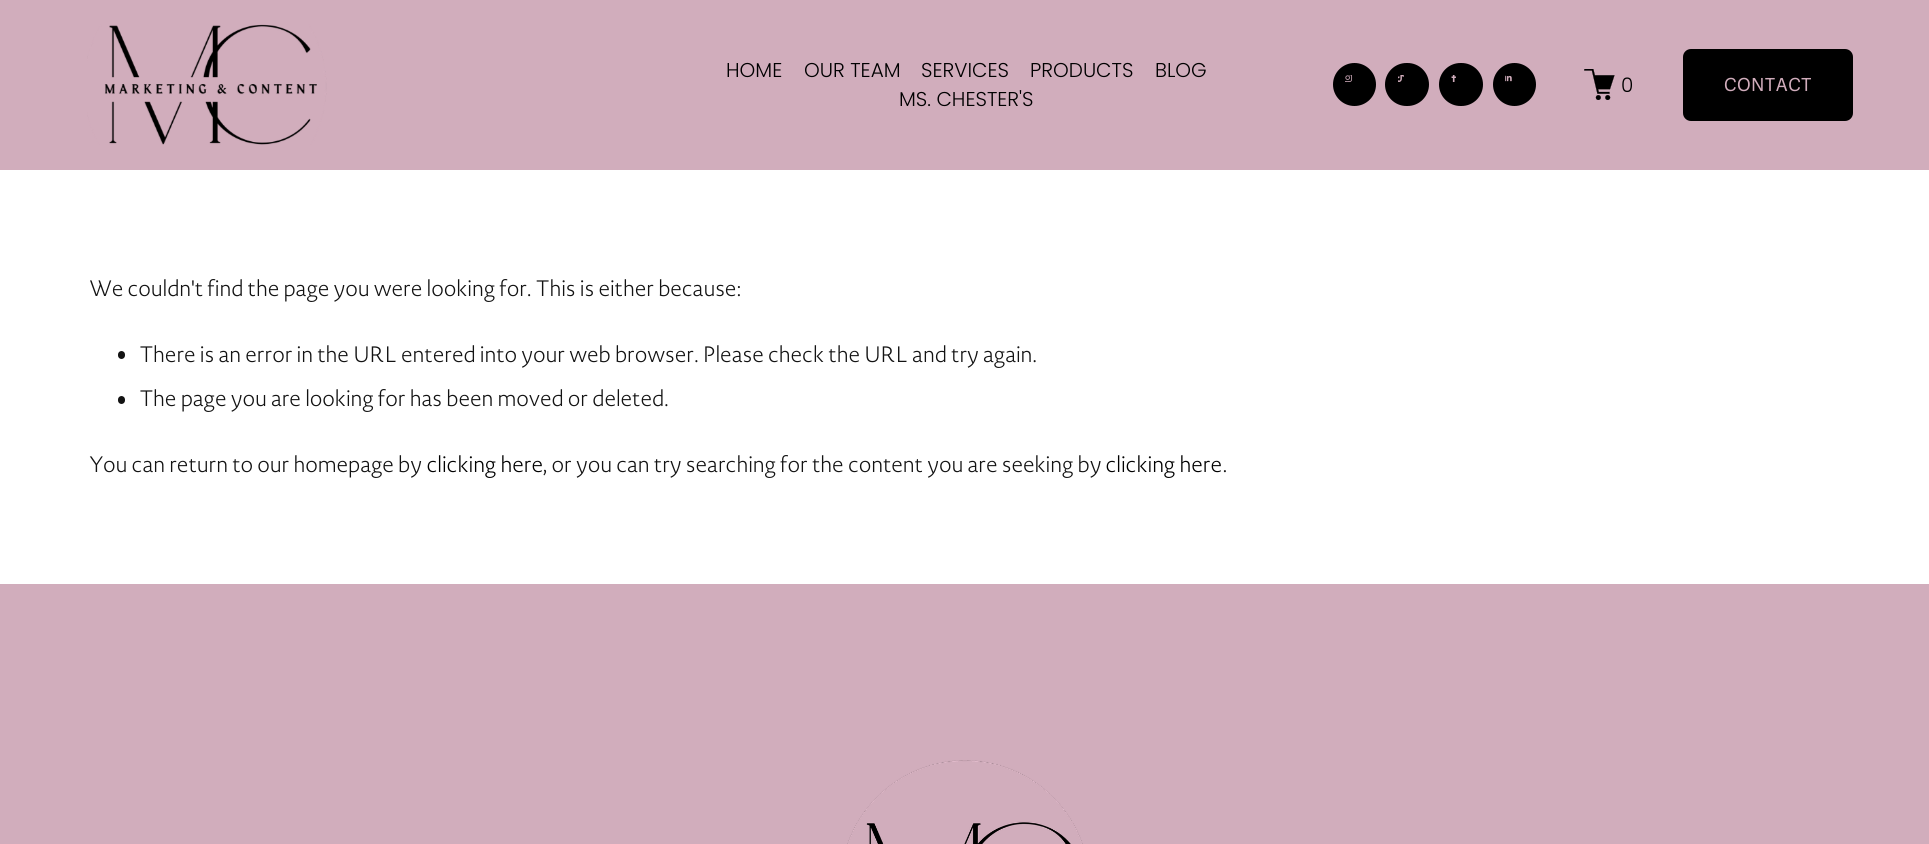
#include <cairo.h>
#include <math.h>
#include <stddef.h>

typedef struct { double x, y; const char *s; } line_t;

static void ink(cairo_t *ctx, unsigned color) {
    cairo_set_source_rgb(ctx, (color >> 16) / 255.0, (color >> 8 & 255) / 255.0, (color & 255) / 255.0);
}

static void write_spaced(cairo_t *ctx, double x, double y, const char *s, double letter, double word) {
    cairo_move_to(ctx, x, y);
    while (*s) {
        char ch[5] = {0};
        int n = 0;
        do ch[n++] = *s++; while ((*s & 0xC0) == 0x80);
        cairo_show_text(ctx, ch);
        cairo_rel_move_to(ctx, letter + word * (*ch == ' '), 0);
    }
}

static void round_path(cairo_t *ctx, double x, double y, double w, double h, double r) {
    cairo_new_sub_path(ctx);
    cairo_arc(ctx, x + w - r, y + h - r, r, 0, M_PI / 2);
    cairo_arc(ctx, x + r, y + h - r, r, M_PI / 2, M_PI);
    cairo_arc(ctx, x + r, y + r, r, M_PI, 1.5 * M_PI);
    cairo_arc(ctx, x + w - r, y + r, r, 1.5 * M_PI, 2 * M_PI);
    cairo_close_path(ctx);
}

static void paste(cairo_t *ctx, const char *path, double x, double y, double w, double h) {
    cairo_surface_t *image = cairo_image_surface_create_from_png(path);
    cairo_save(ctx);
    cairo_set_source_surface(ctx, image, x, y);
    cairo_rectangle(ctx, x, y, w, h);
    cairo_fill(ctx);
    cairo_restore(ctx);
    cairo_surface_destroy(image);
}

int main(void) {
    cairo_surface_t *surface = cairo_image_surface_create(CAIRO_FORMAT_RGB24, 1929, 844);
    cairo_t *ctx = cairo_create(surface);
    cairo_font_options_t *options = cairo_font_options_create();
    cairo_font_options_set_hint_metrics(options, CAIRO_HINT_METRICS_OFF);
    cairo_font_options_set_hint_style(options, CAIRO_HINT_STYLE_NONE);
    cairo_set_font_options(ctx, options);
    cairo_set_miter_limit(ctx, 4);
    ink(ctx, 0xFFFFFF);
    cairo_paint(ctx);
    ink(ctx, 0xD1ADBC);
    cairo_rectangle(ctx, 0, 0, 1929, 170);
    cairo_fill(ctx);
    paste(ctx, "media/1.png", 87, 24, 240, 121);
    cairo_select_font_face(ctx, "Poppins Light", CAIRO_FONT_SLANT_NORMAL, CAIRO_FONT_WEIGHT_NORMAL);
    cairo_set_font_size(ctx, 20);
    ink(ctx, 0x000000);
    {
        static const line_t items[] = {
            {726, 77, "HOME"},
            {804, 77, "OUR TEAM"},
            {921, 77, "SERVICES"},
            {1030, 77, "PRODUCTS"},
            {1155, 77, "BLOG"},
            {899, 106, "MS. CHESTER'S"},
        };
        for (size_t i = 0; i < sizeof items / sizeof *items; i++) {
            cairo_move_to(ctx, items[i].x, items[i].y);
            cairo_show_text(ctx, items[i].s);
        }
    }
    cairo_new_path(ctx);
    cairo_arc(ctx, 1354.5, 84.5, 21.5, 0, 2 * M_PI);
    cairo_fill(ctx);
    paste(ctx, "media/2.png", 1345, 75, 8, 7);
    round_path(ctx, 1385, 63, 44, 43, 21.5);
    cairo_fill(ctx);
    paste(ctx, "media/3.png", 1398, 75, 6, 7);
    round_path(ctx, 1439, 63, 44, 43, 21.5);
    cairo_fill(ctx);
    paste(ctx, "media/4.png", 1451, 75, 5, 7);
    cairo_arc(ctx, 1514.5, 84.5, 21.5, 0, 2 * M_PI);
    cairo_fill(ctx);
    paste(ctx, "media/5.png", 1505, 75, 7, 7);
    paste(ctx, "media/6.png", 1584, 69, 31, 31);
    cairo_move_to(ctx, 1621, 92);
    cairo_show_text(ctx, "0");
    round_path(ctx, 1683, 49, 170, 72, 8);
    cairo_fill(ctx);
    cairo_select_font_face(ctx, "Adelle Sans", CAIRO_FONT_SLANT_NORMAL, CAIRO_FONT_WEIGHT_NORMAL);
    cairo_set_font_size(ctx, 18);
    ink(ctx, 0xD1ADBC);
    write_spaced(ctx, 1724, 91, "CONTACT", 0.5, 0);
    cairo_select_font_face(ctx, "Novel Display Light", CAIRO_FONT_SLANT_NORMAL, CAIRO_FONT_WEIGHT_NORMAL);
    cairo_set_font_size(ctx, 22);
    ink(ctx, 0x131313);
    write_spaced(ctx, 90, 296, "We couldn't find the page you were looking for. This is either because:", 0.88, 0);
    round_path(ctx, 118, 351, 7, 8, 3.5);
    cairo_fill(ctx);
    write_spaced(ctx, 140, 362, "There is an error in the URL entered into your web browser. Please check the URL and try again.", 0.88, 0);
    round_path(ctx, 118, 396, 7, 8, 3.5);
    cairo_fill(ctx);
    write_spaced(ctx, 140, 406, "The page you are looking for has been moved or deleted.", 0.88, 0);
    write_spaced(ctx, 90, 472, "You can return to our homepage by", 0.88, 0);
    ink(ctx, 0x000000);
    write_spaced(ctx, 427, 472, "clicking here", 0.88, 0);
    ink(ctx, 0x131313);
    write_spaced(ctx, 543, 472, ", or you can try searching for the content you are seeking by", 0.88, 0);
    ink(ctx, 0x000000);
    write_spaced(ctx, 1106, 472, "clicking here", 0.88, 0);
    ink(ctx, 0x131313);
    write_spaced(ctx, 1223, 472, ".", 0.88, 0);
    ink(ctx, 0xD1ADBC);
    cairo_rectangle(ctx, 0, 584, 1929, 260);
    cairo_fill(ctx);
    paste(ctx, "media/7.png", 847, 760, 236, 84);
    cairo_surface_write_to_png(surface, "image.png");
    cairo_font_options_destroy(options);
    cairo_destroy(ctx);
    cairo_surface_destroy(surface);
    return 0;
}
